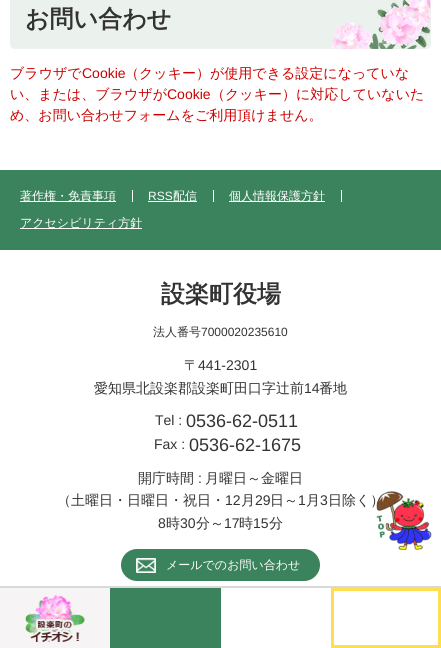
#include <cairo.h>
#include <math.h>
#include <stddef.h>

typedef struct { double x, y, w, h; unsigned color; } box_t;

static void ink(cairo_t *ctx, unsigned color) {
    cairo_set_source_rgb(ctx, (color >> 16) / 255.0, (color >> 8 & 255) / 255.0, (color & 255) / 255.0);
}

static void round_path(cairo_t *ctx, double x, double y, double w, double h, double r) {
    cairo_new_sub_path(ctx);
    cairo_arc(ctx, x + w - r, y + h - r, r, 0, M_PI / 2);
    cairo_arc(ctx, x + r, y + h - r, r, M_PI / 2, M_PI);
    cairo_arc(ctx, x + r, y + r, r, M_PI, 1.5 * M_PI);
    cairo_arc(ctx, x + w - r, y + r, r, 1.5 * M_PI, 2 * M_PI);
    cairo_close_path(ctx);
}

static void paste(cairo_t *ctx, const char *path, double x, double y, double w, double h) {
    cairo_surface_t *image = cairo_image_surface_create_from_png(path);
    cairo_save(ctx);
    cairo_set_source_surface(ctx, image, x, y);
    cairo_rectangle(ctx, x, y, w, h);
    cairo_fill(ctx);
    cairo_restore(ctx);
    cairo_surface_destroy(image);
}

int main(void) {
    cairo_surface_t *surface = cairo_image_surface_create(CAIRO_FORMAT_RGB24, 441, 648);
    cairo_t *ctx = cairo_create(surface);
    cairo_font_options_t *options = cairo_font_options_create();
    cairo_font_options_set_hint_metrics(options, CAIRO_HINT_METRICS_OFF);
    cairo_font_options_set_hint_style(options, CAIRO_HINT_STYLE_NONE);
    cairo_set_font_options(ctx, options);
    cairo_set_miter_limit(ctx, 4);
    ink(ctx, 0xFFFFFF);
    cairo_paint(ctx);
    ink(ctx, 0xEBF2EE);
    round_path(ctx, 10, -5, 421, 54, 5);
    cairo_fill(ctx);
    paste(ctx, "media/1.png", 331, 0, 100, 49);
    cairo_select_font_face(ctx, "WenQuanYi Zen Hei", CAIRO_FONT_SLANT_NORMAL, CAIRO_FONT_WEIGHT_BOLD);
    cairo_set_font_size(ctx, 24);
    ink(ctx, 0x333333);
    cairo_move_to(ctx, 25, 27);
    cairo_show_text(ctx, "お問い合わせ");
    cairo_select_font_face(ctx, "WenQuanYi Zen Hei Medium", CAIRO_FONT_SLANT_NORMAL, CAIRO_FONT_WEIGHT_NORMAL);
    cairo_set_font_size(ctx, 14);
    ink(ctx, 0xCC0000);
    cairo_move_to(ctx, 10, 78);
    cairo_show_text(ctx, "ブラウザで");
    cairo_select_font_face(ctx, "Liberation Sans", CAIRO_FONT_SLANT_NORMAL, CAIRO_FONT_WEIGHT_NORMAL);
    cairo_move_to(ctx, 82, 78);
    cairo_show_text(ctx, "Cookie");
    cairo_select_font_face(ctx, "WenQuanYi Zen Hei Medium", CAIRO_FONT_SLANT_NORMAL, CAIRO_FONT_WEIGHT_NORMAL);
    cairo_move_to(ctx, 125, 78);
    cairo_show_text(ctx, "（クッキー）が使用できる設定になっていな");
    cairo_move_to(ctx, 10, 99);
    cairo_show_text(ctx, "い、または、ブラウザが");
    cairo_select_font_face(ctx, "Liberation Sans", CAIRO_FONT_SLANT_NORMAL, CAIRO_FONT_WEIGHT_NORMAL);
    cairo_move_to(ctx, 167, 99);
    cairo_show_text(ctx, "Cookie");
    cairo_select_font_face(ctx, "WenQuanYi Zen Hei Medium", CAIRO_FONT_SLANT_NORMAL, CAIRO_FONT_WEIGHT_NORMAL);
    cairo_move_to(ctx, 211, 99);
    cairo_show_text(ctx, "（クッキー）に対応していないた");
    cairo_move_to(ctx, 10, 120);
    cairo_show_text(ctx, "め、お問い合わせフォームをご利用頂けません。");
    {
        static const box_t items[] = {
            {0, 170, 441, 80, 0x3B835C},
            {132, 190, 1, 12, 0xFFFFFF},
            {20, 201, 96, 1, 0xFFFFFF},
        };
        for (size_t i = 0; i < sizeof items / sizeof *items; i++) {
            ink(ctx, items[i].color);
            cairo_rectangle(ctx, items[i].x, items[i].y, items[i].w, items[i].h);
            cairo_fill(ctx);
        }
    }
    cairo_set_font_size(ctx, 12);
    cairo_move_to(ctx, 20, 200);
    cairo_show_text(ctx, "著作権・免責事項");
    cairo_rectangle(ctx, 213, 190, 1, 12);
    cairo_fill(ctx);
    cairo_select_font_face(ctx, "Liberation Sans", CAIRO_FONT_SLANT_NORMAL, CAIRO_FONT_WEIGHT_NORMAL);
    cairo_move_to(ctx, 148, 200);
    cairo_show_text(ctx, "RSS");
    cairo_rectangle(ctx, 148, 201, 49, 1);
    cairo_fill(ctx);
    cairo_select_font_face(ctx, "WenQuanYi Zen Hei Medium", CAIRO_FONT_SLANT_NORMAL, CAIRO_FONT_WEIGHT_NORMAL);
    cairo_move_to(ctx, 173, 200);
    cairo_show_text(ctx, "配信");
    cairo_rectangle(ctx, 341, 190, 1, 12);
    cairo_fill(ctx);
    cairo_rectangle(ctx, 229, 201, 96, 1);
    cairo_fill(ctx);
    cairo_move_to(ctx, 229, 200);
    cairo_show_text(ctx, "個人情報保護方針");
    cairo_rectangle(ctx, 20, 228, 122, 1);
    cairo_fill(ctx);
    cairo_move_to(ctx, 20, 227);
    cairo_show_text(ctx, "アクセシビリティ方針");
    cairo_select_font_face(ctx, "WenQuanYi Zen Hei", CAIRO_FONT_SLANT_NORMAL, CAIRO_FONT_WEIGHT_BOLD);
    cairo_set_font_size(ctx, 24);
    ink(ctx, 0x333333);
    cairo_move_to(ctx, 161, 302);
    cairo_show_text(ctx, "設楽町役場");
    cairo_select_font_face(ctx, "WenQuanYi Zen Hei Medium", CAIRO_FONT_SLANT_NORMAL, CAIRO_FONT_WEIGHT_NORMAL);
    cairo_set_font_size(ctx, 12);
    cairo_move_to(ctx, 153, 336);
    cairo_show_text(ctx, "法人番号");
    cairo_select_font_face(ctx, "Liberation Sans", CAIRO_FONT_SLANT_NORMAL, CAIRO_FONT_WEIGHT_NORMAL);
    cairo_move_to(ctx, 201, 336);
    cairo_show_text(ctx, "7000020235610");
    cairo_select_font_face(ctx, "WenQuanYi Zen Hei Medium", CAIRO_FONT_SLANT_NORMAL, CAIRO_FONT_WEIGHT_NORMAL);
    cairo_set_font_size(ctx, 14);
    cairo_move_to(ctx, 184, 370);
    cairo_show_text(ctx, "〒");
    cairo_select_font_face(ctx, "Liberation Sans", CAIRO_FONT_SLANT_NORMAL, CAIRO_FONT_WEIGHT_NORMAL);
    cairo_move_to(ctx, 198, 370);
    cairo_show_text(ctx, "441-2301");
    cairo_select_font_face(ctx, "WenQuanYi Zen Hei Medium", CAIRO_FONT_SLANT_NORMAL, CAIRO_FONT_WEIGHT_NORMAL);
    cairo_move_to(ctx, 94, 393);
    cairo_show_text(ctx, "愛知県北設楽郡設楽町田口字辻前");
    cairo_select_font_face(ctx, "Liberation Sans", CAIRO_FONT_SLANT_NORMAL, CAIRO_FONT_WEIGHT_NORMAL);
    cairo_move_to(ctx, 304, 393);
    cairo_show_text(ctx, "14");
    cairo_select_font_face(ctx, "WenQuanYi Zen Hei Medium", CAIRO_FONT_SLANT_NORMAL, CAIRO_FONT_WEIGHT_NORMAL);
    cairo_move_to(ctx, 319, 393);
    cairo_show_text(ctx, "番地");
    cairo_select_font_face(ctx, "Liberation Sans", CAIRO_FONT_SLANT_NORMAL, CAIRO_FONT_WEIGHT_NORMAL);
    cairo_move_to(ctx, 155, 425);
    cairo_show_text(ctx, "Tel :");
    cairo_set_font_size(ctx, 18);
    cairo_move_to(ctx, 186, 427);
    cairo_show_text(ctx, "0536-62-0511");
    cairo_set_font_size(ctx, 14);
    cairo_move_to(ctx, 154, 449);
    cairo_show_text(ctx, "Fax :");
    cairo_set_font_size(ctx, 18);
    cairo_move_to(ctx, 189, 451);
    cairo_show_text(ctx, "0536-62-1675");
    cairo_select_font_face(ctx, "WenQuanYi Zen Hei Medium", CAIRO_FONT_SLANT_NORMAL, CAIRO_FONT_WEIGHT_NORMAL);
    cairo_set_font_size(ctx, 14);
    cairo_move_to(ctx, 138, 483);
    cairo_show_text(ctx, "開庁時間");
    cairo_select_font_face(ctx, "Liberation Sans", CAIRO_FONT_SLANT_NORMAL, CAIRO_FONT_WEIGHT_NORMAL);
    cairo_move_to(ctx, 198, 483);
    cairo_show_text(ctx, ":");
    cairo_select_font_face(ctx, "WenQuanYi Zen Hei Medium", CAIRO_FONT_SLANT_NORMAL, CAIRO_FONT_WEIGHT_NORMAL);
    cairo_move_to(ctx, 205, 483);
    cairo_show_text(ctx, "月曜日～金曜日");
    cairo_move_to(ctx, 57, 505);
    cairo_show_text(ctx, "（土曜日・日曜日・祝日・");
    cairo_select_font_face(ctx, "Liberation Sans", CAIRO_FONT_SLANT_NORMAL, CAIRO_FONT_WEIGHT_NORMAL);
    cairo_move_to(ctx, 225, 505);
    cairo_show_text(ctx, "12");
    cairo_select_font_face(ctx, "WenQuanYi Zen Hei Medium", CAIRO_FONT_SLANT_NORMAL, CAIRO_FONT_WEIGHT_NORMAL);
    cairo_move_to(ctx, 241, 505);
    cairo_show_text(ctx, "月");
    cairo_select_font_face(ctx, "Liberation Sans", CAIRO_FONT_SLANT_NORMAL, CAIRO_FONT_WEIGHT_NORMAL);
    cairo_move_to(ctx, 255, 505);
    cairo_show_text(ctx, "29");
    cairo_select_font_face(ctx, "WenQuanYi Zen Hei Medium", CAIRO_FONT_SLANT_NORMAL, CAIRO_FONT_WEIGHT_NORMAL);
    cairo_move_to(ctx, 270, 505);
    cairo_show_text(ctx, "日～");
    cairo_select_font_face(ctx, "Liberation Sans", CAIRO_FONT_SLANT_NORMAL, CAIRO_FONT_WEIGHT_NORMAL);
    cairo_move_to(ctx, 298, 505);
    cairo_show_text(ctx, "1");
    cairo_select_font_face(ctx, "WenQuanYi Zen Hei Medium", CAIRO_FONT_SLANT_NORMAL, CAIRO_FONT_WEIGHT_NORMAL);
    cairo_move_to(ctx, 306, 505);
    cairo_show_text(ctx, "月");
    cairo_select_font_face(ctx, "Liberation Sans", CAIRO_FONT_SLANT_NORMAL, CAIRO_FONT_WEIGHT_NORMAL);
    cairo_move_to(ctx, 320, 505);
    cairo_show_text(ctx, "3");
    cairo_select_font_face(ctx, "WenQuanYi Zen Hei Medium", CAIRO_FONT_SLANT_NORMAL, CAIRO_FONT_WEIGHT_NORMAL);
    cairo_move_to(ctx, 328, 505);
    cairo_show_text(ctx, "日除く）");
    cairo_select_font_face(ctx, "Liberation Sans", CAIRO_FONT_SLANT_NORMAL, CAIRO_FONT_WEIGHT_NORMAL);
    cairo_move_to(ctx, 158, 528);
    cairo_show_text(ctx, "8");
    cairo_select_font_face(ctx, "WenQuanYi Zen Hei Medium", CAIRO_FONT_SLANT_NORMAL, CAIRO_FONT_WEIGHT_NORMAL);
    cairo_move_to(ctx, 166, 528);
    cairo_show_text(ctx, "時");
    cairo_select_font_face(ctx, "Liberation Sans", CAIRO_FONT_SLANT_NORMAL, CAIRO_FONT_WEIGHT_NORMAL);
    cairo_move_to(ctx, 180, 528);
    cairo_show_text(ctx, "30");
    cairo_select_font_face(ctx, "WenQuanYi Zen Hei Medium", CAIRO_FONT_SLANT_NORMAL, CAIRO_FONT_WEIGHT_NORMAL);
    cairo_move_to(ctx, 196, 528);
    cairo_show_text(ctx, "分～");
    cairo_select_font_face(ctx, "Liberation Sans", CAIRO_FONT_SLANT_NORMAL, CAIRO_FONT_WEIGHT_NORMAL);
    cairo_move_to(ctx, 224, 528);
    cairo_show_text(ctx, "17");
    cairo_select_font_face(ctx, "WenQuanYi Zen Hei Medium", CAIRO_FONT_SLANT_NORMAL, CAIRO_FONT_WEIGHT_NORMAL);
    cairo_move_to(ctx, 239, 528);
    cairo_show_text(ctx, "時");
    cairo_select_font_face(ctx, "Liberation Sans", CAIRO_FONT_SLANT_NORMAL, CAIRO_FONT_WEIGHT_NORMAL);
    cairo_move_to(ctx, 253, 528);
    cairo_show_text(ctx, "15");
    cairo_select_font_face(ctx, "WenQuanYi Zen Hei Medium", CAIRO_FONT_SLANT_NORMAL, CAIRO_FONT_WEIGHT_NORMAL);
    cairo_move_to(ctx, 269, 528);
    cairo_show_text(ctx, "分");
    paste(ctx, "media/2.png", 376, 491, 56, 59);
    ink(ctx, 0x3B835C);
    round_path(ctx, 121, 549, 199, 32, 16);
    cairo_fill(ctx);
    paste(ctx, "media/3.png", 136, 558, 20, 15);
    cairo_set_font_size(ctx, 12);
    ink(ctx, 0xFFFFFF);
    cairo_move_to(ctx, 166, 569);
    cairo_show_text(ctx, "メールでのお問い合わせ");
    ink(ctx, 0xD9D9D9);
    cairo_rectangle(ctx, 0, 586, 441, 2);
    cairo_fill(ctx);
    ink(ctx, 0xF6F4F4);
    cairo_rectangle(ctx, 0, 588, 110, 60);
    cairo_fill(ctx);
    paste(ctx, "media/4.png", 25, 595, 61, 47);
    ink(ctx, 0x3B835C);
    cairo_rectangle(ctx, 110, 588, 111, 60);
    cairo_fill(ctx);
    cairo_rectangle(ctx, 332.5, 589.5, 107, 57);
    ink(ctx, 0xFFDE4F);
    cairo_set_line_width(ctx, 3);
    cairo_stroke(ctx);
    cairo_surface_write_to_png(surface, "image.png");
    cairo_font_options_destroy(options);
    cairo_destroy(ctx);
    cairo_surface_destroy(surface);
    return 0;
}
